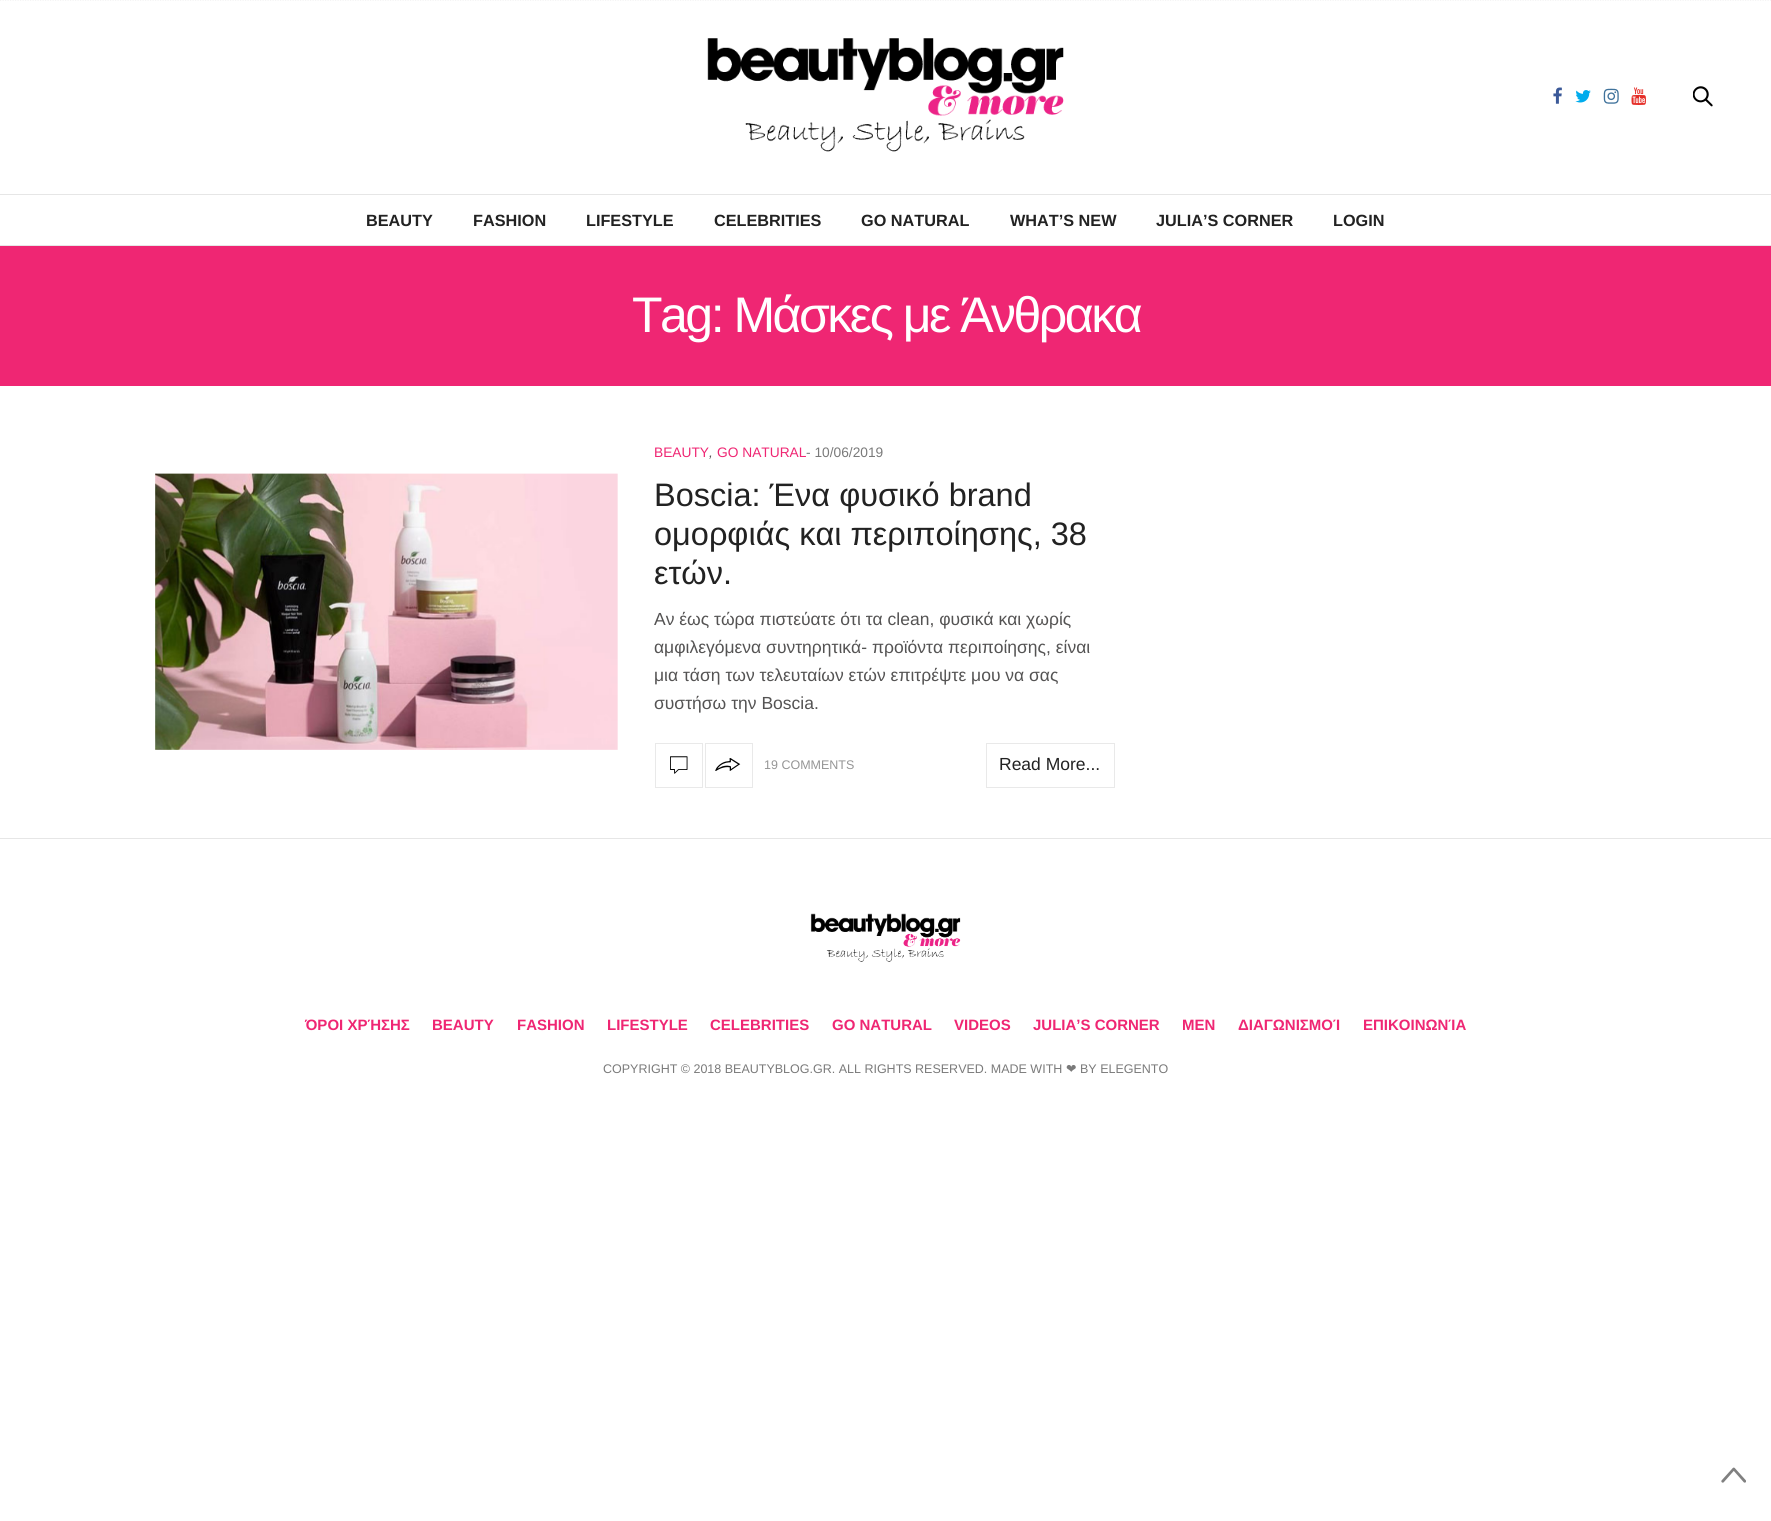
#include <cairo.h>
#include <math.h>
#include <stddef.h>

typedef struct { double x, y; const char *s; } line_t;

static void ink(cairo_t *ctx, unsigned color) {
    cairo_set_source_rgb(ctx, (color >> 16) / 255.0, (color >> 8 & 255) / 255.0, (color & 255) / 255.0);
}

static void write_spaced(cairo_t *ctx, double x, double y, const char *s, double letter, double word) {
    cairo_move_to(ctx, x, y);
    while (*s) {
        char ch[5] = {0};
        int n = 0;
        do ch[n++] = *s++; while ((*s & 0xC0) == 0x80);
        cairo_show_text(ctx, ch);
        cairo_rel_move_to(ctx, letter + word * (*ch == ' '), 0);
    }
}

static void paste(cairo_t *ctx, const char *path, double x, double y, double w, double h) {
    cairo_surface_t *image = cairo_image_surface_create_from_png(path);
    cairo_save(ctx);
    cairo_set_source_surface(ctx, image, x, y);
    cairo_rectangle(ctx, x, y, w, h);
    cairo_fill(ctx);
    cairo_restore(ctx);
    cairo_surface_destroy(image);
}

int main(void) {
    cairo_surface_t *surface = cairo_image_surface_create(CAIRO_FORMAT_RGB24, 1771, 1521);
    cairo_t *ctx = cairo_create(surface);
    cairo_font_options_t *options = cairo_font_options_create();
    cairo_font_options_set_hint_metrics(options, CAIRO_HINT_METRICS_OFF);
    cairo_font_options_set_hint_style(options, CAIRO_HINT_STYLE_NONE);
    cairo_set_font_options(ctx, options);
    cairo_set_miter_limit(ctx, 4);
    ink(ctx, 0xFFFFFF);
    cairo_paint(ctx);
    cairo_new_path(ctx);
    cairo_move_to(ctx, 0, -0.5);
    cairo_line_to(ctx, 1771, -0.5);
    ink(ctx, 0x959595);
    cairo_set_line_width(ctx, 1.2);
    cairo_set_dash(ctx, (double[]){1.25, 1.25}, 2, 0);
    cairo_stroke(ctx);
    ink(ctx, 0xE6E6E6);
    cairo_rectangle(ctx, 0, 194, 1771, 1);
    cairo_fill(ctx);
    paste(ctx, "media/1.png", 707, 38, 357, 114);
    paste(ctx, "media/2.png", 1553, 87, 9, 17);
    paste(ctx, "media/3.png", 1575, 90, 16, 13);
    paste(ctx, "media/4.png", 1603, 88, 16, 16);
    paste(ctx, "media/5.png", 1631, 87, 15, 18);
    paste(ctx, "media/6.png", 1693, 86, 20, 21);
    cairo_rectangle(ctx, 0, 245, 1771, 1);
    cairo_fill(ctx);
    cairo_select_font_face(ctx, "Liberation Sans", CAIRO_FONT_SLANT_NORMAL, CAIRO_FONT_WEIGHT_BOLD);
    cairo_set_font_size(ctx, 16.25);
    ink(ctx, 0x222222);
    {
        static const line_t items[] = {
            {366, 226, "BEAUTY"},
            {473, 226, "FASHION"},
            {586, 226, "LIFESTYLE"},
            {714, 226, "CELEBRITIES"},
            {861, 226, "GO NATURAL"},
            {1010, 226, "WHAT’S NEW"},
            {1156, 226, "JULIA’S CORNER"},
            {1333, 226, "LOGIN"},
        };
        for (size_t i = 0; i < sizeof items / sizeof *items; i++) {
            cairo_move_to(ctx, items[i].x, items[i].y);
            cairo_show_text(ctx, items[i].s);
        }
    }
    ink(ctx, 0xEF2673);
    cairo_rectangle(ctx, 0, 246, 1771, 140);
    cairo_fill(ctx);
    cairo_select_font_face(ctx, "Liberation Sans", CAIRO_FONT_SLANT_NORMAL, CAIRO_FONT_WEIGHT_NORMAL);
    cairo_set_font_size(ctx, 50);
    ink(ctx, 0xFFFFFF);
    write_spaced(ctx, 632, 332, "Tag: Μάσκες με Άνθρακα", -2.5, 0);
    paste(ctx, "media/7.png", 155, 473, 463, 277);
    cairo_set_font_size(ctx, 13.75);
    ink(ctx, 0xEF2673);
    cairo_move_to(ctx, 654, 457);
    cairo_show_text(ctx, "BEAUTY");
    cairo_select_font_face(ctx, "Liberation Sans", CAIRO_FONT_SLANT_ITALIC, CAIRO_FONT_WEIGHT_NORMAL);
    ink(ctx, 0x545353);
    cairo_move_to(ctx, 709, 457);
    cairo_show_text(ctx, ",");
    cairo_select_font_face(ctx, "Liberation Sans", CAIRO_FONT_SLANT_NORMAL, CAIRO_FONT_WEIGHT_NORMAL);
    ink(ctx, 0xEF2673);
    cairo_move_to(ctx, 717, 457);
    cairo_show_text(ctx, "GO NATURAL");
    ink(ctx, 0x7A7A7A);
    cairo_move_to(ctx, 806, 457);
    cairo_show_text(ctx, "- 10/06/2019");
    cairo_set_font_size(ctx, 32.5);
    ink(ctx, 0x222222);
    {
        static const line_t items[] = {
            {654, 506, "Boscia: Ένα φυσικό brand"},
            {654, 545, "ομορφιάς και περιποίησης, 38"},
            {654, 584, "ετών."},
        };
        for (size_t i = 0; i < sizeof items / sizeof *items; i++) {
            cairo_move_to(ctx, items[i].x, items[i].y);
            cairo_show_text(ctx, items[i].s);
        }
    }
    cairo_set_font_size(ctx, 17.5);
    ink(ctx, 0x545353);
    {
        static const line_t items[] = {
            {654, 625, "Αν έως τώρα πιστεύατε ότι τα clean, φυσικά και χωρίς"},
            {654, 653, "αμφιλεγόμενα συντηρητικά- προϊόντα περιποίησης, είναι"},
            {654, 681, "μια τάση των τελευταίων ετών επιτρέψτε μου να σας"},
            {654, 709, "συστήσω την Boscia."},
        };
        for (size_t i = 0; i < sizeof items / sizeof *items; i++) {
            cairo_move_to(ctx, items[i].x, items[i].y);
            cairo_show_text(ctx, items[i].s);
        }
    }
    cairo_rectangle(ctx, 655.5, 743.5, 47, 44);
    ink(ctx, 0xE9E9E9);
    cairo_set_line_width(ctx, 1);
    cairo_set_dash(ctx, NULL, 0, 0);
    cairo_stroke(ctx);
    paste(ctx, "media/8.png", 670, 756, 18, 18);
    cairo_rectangle(ctx, 705.5, 743.5, 47, 44);
    cairo_stroke(ctx);
    paste(ctx, "media/9.png", 715, 758, 26, 13);
    cairo_set_font_size(ctx, 12.5);
    ink(ctx, 0x959595);
    cairo_move_to(ctx, 764, 769);
    cairo_show_text(ctx, "19 COMMENTS");
    cairo_rectangle(ctx, 986.5, 743.5, 128, 44);
    ink(ctx, 0xE9E9E9);
    cairo_stroke(ctx);
    cairo_set_font_size(ctx, 17.5);
    ink(ctx, 0x222222);
    cairo_move_to(ctx, 999, 770);
    cairo_show_text(ctx, "Read More...");
    ink(ctx, 0xE6E6E6);
    cairo_rectangle(ctx, 0, 838, 1771, 1);
    cairo_fill(ctx);
    paste(ctx, "media/10.png", 810, 913, 151, 49);
    cairo_select_font_face(ctx, "Liberation Sans", CAIRO_FONT_SLANT_NORMAL, CAIRO_FONT_WEIGHT_BOLD);
    cairo_set_font_size(ctx, 15);
    ink(ctx, 0xEF2673);
    {
        static const line_t items[] = {
            {305, 1030, "ΌΡΟΙ ΧΡΉΣΗΣ"},
            {432, 1030, "BEAUTY"},
            {517, 1030, "FASHION"},
            {607, 1030, "LIFESTYLE"},
            {710, 1030, "CELEBRITIES"},
            {832, 1030, "GO NATURAL"},
            {954, 1030, "VIDEOS"},
            {1033, 1030, "JULIA’S CORNER"},
            {1182, 1030, "MEN"},
            {1238, 1030, "ΔΙΑΓΩΝΙΣΜΟΊ"},
            {1363, 1030, "ΕΠΙΚΟΙΝΩΝΊΑ"},
        };
        for (size_t i = 0; i < sizeof items / sizeof *items; i++) {
            cairo_move_to(ctx, items[i].x, items[i].y);
            cairo_show_text(ctx, items[i].s);
        }
    }
    cairo_select_font_face(ctx, "Liberation Sans", CAIRO_FONT_SLANT_NORMAL, CAIRO_FONT_WEIGHT_NORMAL);
    cairo_set_font_size(ctx, 12.5);
    ink(ctx, 0x7A7A7A);
    cairo_move_to(ctx, 603, 1073);
    cairo_show_text(ctx, "COPYRIGHT © 2018 BEAUTYBLOG.GR. ALL RIGHTS RESERVED. MADE WITH");
    cairo_select_font_face(ctx, "DejaVu Sans", CAIRO_FONT_SLANT_NORMAL, CAIRO_FONT_WEIGHT_NORMAL);
    cairo_move_to(ctx, 1066, 1073);
    cairo_show_text(ctx, "❤");
    cairo_select_font_face(ctx, "Liberation Sans", CAIRO_FONT_SLANT_NORMAL, CAIRO_FONT_WEIGHT_NORMAL);
    cairo_move_to(ctx, 1080, 1073);
    cairo_show_text(ctx, "BY ELEGENTO");
    paste(ctx, "media/11.png", 1721, 1467, 25, 16);
    cairo_surface_write_to_png(surface, "image.png");
    cairo_font_options_destroy(options);
    cairo_destroy(ctx);
    cairo_surface_destroy(surface);
    return 0;
}
